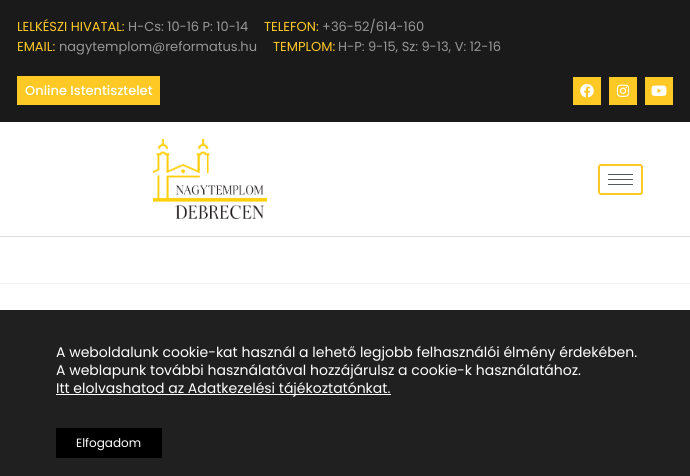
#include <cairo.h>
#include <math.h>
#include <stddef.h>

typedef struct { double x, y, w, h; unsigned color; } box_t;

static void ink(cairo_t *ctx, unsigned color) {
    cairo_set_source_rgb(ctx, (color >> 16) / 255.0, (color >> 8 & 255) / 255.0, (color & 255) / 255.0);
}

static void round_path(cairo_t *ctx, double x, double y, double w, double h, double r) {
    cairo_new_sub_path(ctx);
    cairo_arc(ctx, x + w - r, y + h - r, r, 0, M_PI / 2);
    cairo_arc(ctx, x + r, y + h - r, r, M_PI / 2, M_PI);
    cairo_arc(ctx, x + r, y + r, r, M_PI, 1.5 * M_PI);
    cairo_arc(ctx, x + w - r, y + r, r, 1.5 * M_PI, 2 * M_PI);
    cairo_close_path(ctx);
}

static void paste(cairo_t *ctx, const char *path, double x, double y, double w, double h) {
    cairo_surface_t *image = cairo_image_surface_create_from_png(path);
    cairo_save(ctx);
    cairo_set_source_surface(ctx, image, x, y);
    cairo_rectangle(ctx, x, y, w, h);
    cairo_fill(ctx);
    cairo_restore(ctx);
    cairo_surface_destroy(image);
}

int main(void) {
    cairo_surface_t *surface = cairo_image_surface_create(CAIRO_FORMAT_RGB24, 690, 476);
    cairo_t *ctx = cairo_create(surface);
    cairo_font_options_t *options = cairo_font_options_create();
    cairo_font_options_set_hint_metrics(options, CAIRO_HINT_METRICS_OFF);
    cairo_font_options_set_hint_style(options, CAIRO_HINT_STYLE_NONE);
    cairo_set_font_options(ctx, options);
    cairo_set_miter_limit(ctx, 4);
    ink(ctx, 0xFFFFFF);
    cairo_paint(ctx);
    ink(ctx, 0x1A1A1A);
    cairo_rectangle(ctx, 0, 0, 690, 122);
    cairo_fill(ctx);
    cairo_select_font_face(ctx, "Poppins", CAIRO_FONT_SLANT_NORMAL, CAIRO_FONT_WEIGHT_NORMAL);
    cairo_set_font_size(ctx, 13);
    ink(ctx, 0xFFC925);
    cairo_move_to(ctx, 17, 31);
    cairo_show_text(ctx, "LELKÉSZI HIVATAL:");
    ink(ctx, 0x979797);
    cairo_move_to(ctx, 128, 31);
    cairo_show_text(ctx, "H-Cs: 10-16 P: 10-14");
    ink(ctx, 0xFFC925);
    cairo_move_to(ctx, 264, 31);
    cairo_show_text(ctx, "TELEFON:");
    ink(ctx, 0x979797);
    cairo_move_to(ctx, 322, 31);
    cairo_show_text(ctx, "+36-52/614-160");
    ink(ctx, 0xFFC925);
    cairo_move_to(ctx, 17, 51);
    cairo_show_text(ctx, "EMAIL:");
    ink(ctx, 0x979797);
    cairo_move_to(ctx, 59, 51);
    cairo_show_text(ctx, "nagytemplom@reformatus.hu");
    ink(ctx, 0xFFC925);
    cairo_move_to(ctx, 273, 51);
    cairo_show_text(ctx, "TEMPLOM:");
    ink(ctx, 0x979797);
    cairo_move_to(ctx, 338, 51);
    cairo_show_text(ctx, "H-P: 9-15, Sz: 9-13, V: 12-16");
    ink(ctx, 0xFFC925);
    cairo_rectangle(ctx, 17, 76, 143, 29);
    cairo_fill(ctx);
    cairo_select_font_face(ctx, "Poppins Medium", CAIRO_FONT_SLANT_NORMAL, CAIRO_FONT_WEIGHT_NORMAL);
    ink(ctx, 0xFFFFFF);
    cairo_move_to(ctx, 25, 95);
    cairo_show_text(ctx, "Online Istentisztelet");
    ink(ctx, 0xFFC925);
    cairo_rectangle(ctx, 573, 77, 28, 28);
    cairo_fill(ctx);
    paste(ctx, "media/1.png", 580, 84, 14, 14);
    cairo_rectangle(ctx, 609, 77, 28, 28);
    cairo_fill(ctx);
    paste(ctx, "media/2.png", 616, 84, 14, 13);
    cairo_rectangle(ctx, 645, 77, 28, 28);
    cairo_fill(ctx);
    paste(ctx, "media/3.png", 651, 85, 16, 11);
    ink(ctx, 0xDDDDDD);
    cairo_rectangle(ctx, 0, 236, 690, 1);
    cairo_fill(ctx);
    paste(ctx, "media/4.png", 153, 139, 114, 80);
    round_path(ctx, 599, 165, 43, 29, 2);
    ink(ctx, 0xFFC925);
    cairo_stroke(ctx);
    {
        static const box_t items[] = {
            {608, 174, 25, 1, 0x54595F},
            {608, 179, 25, 1, 0x54595F},
            {608, 184, 25, 1, 0x54595F},
            {0, 283, 690, 1, 0xF2F2F2},
            {0, 310, 690, 166, 0x202020},
        };
        for (size_t i = 0; i < sizeof items / sizeof *items; i++) {
            ink(ctx, items[i].color);
            cairo_rectangle(ctx, items[i].x, items[i].y, items[i].w, items[i].h);
            cairo_fill(ctx);
        }
    }
    cairo_select_font_face(ctx, "Poppins", CAIRO_FONT_SLANT_NORMAL, CAIRO_FONT_WEIGHT_NORMAL);
    cairo_set_font_size(ctx, 14);
    ink(ctx, 0xFFFFFF);
    cairo_move_to(ctx, 56, 357);
    cairo_show_text(ctx, "A weboldalunk cookie-kat használ a lehető legjobb felhasználói élmény érdekében.");
    cairo_move_to(ctx, 56, 375);
    cairo_show_text(ctx, "A weblapunk további használatával hozzájárulsz a cookie-k használatához.");
    cairo_rectangle(ctx, 56, 394, 335, 1);
    cairo_fill(ctx);
    cairo_move_to(ctx, 56, 393);
    cairo_show_text(ctx, "Itt elolvashatod az Adatkezelési tájékoztatónkat.");
    ink(ctx, 0x000000);
    cairo_rectangle(ctx, 56, 428, 106, 30);
    cairo_fill(ctx);
    cairo_set_font_size(ctx, 12);
    ink(ctx, 0xFFFFFF);
    cairo_move_to(ctx, 76, 447);
    cairo_show_text(ctx, "Elfogadom");
    cairo_surface_write_to_png(surface, "image.png");
    cairo_font_options_destroy(options);
    cairo_destroy(ctx);
    cairo_surface_destroy(surface);
    return 0;
}
